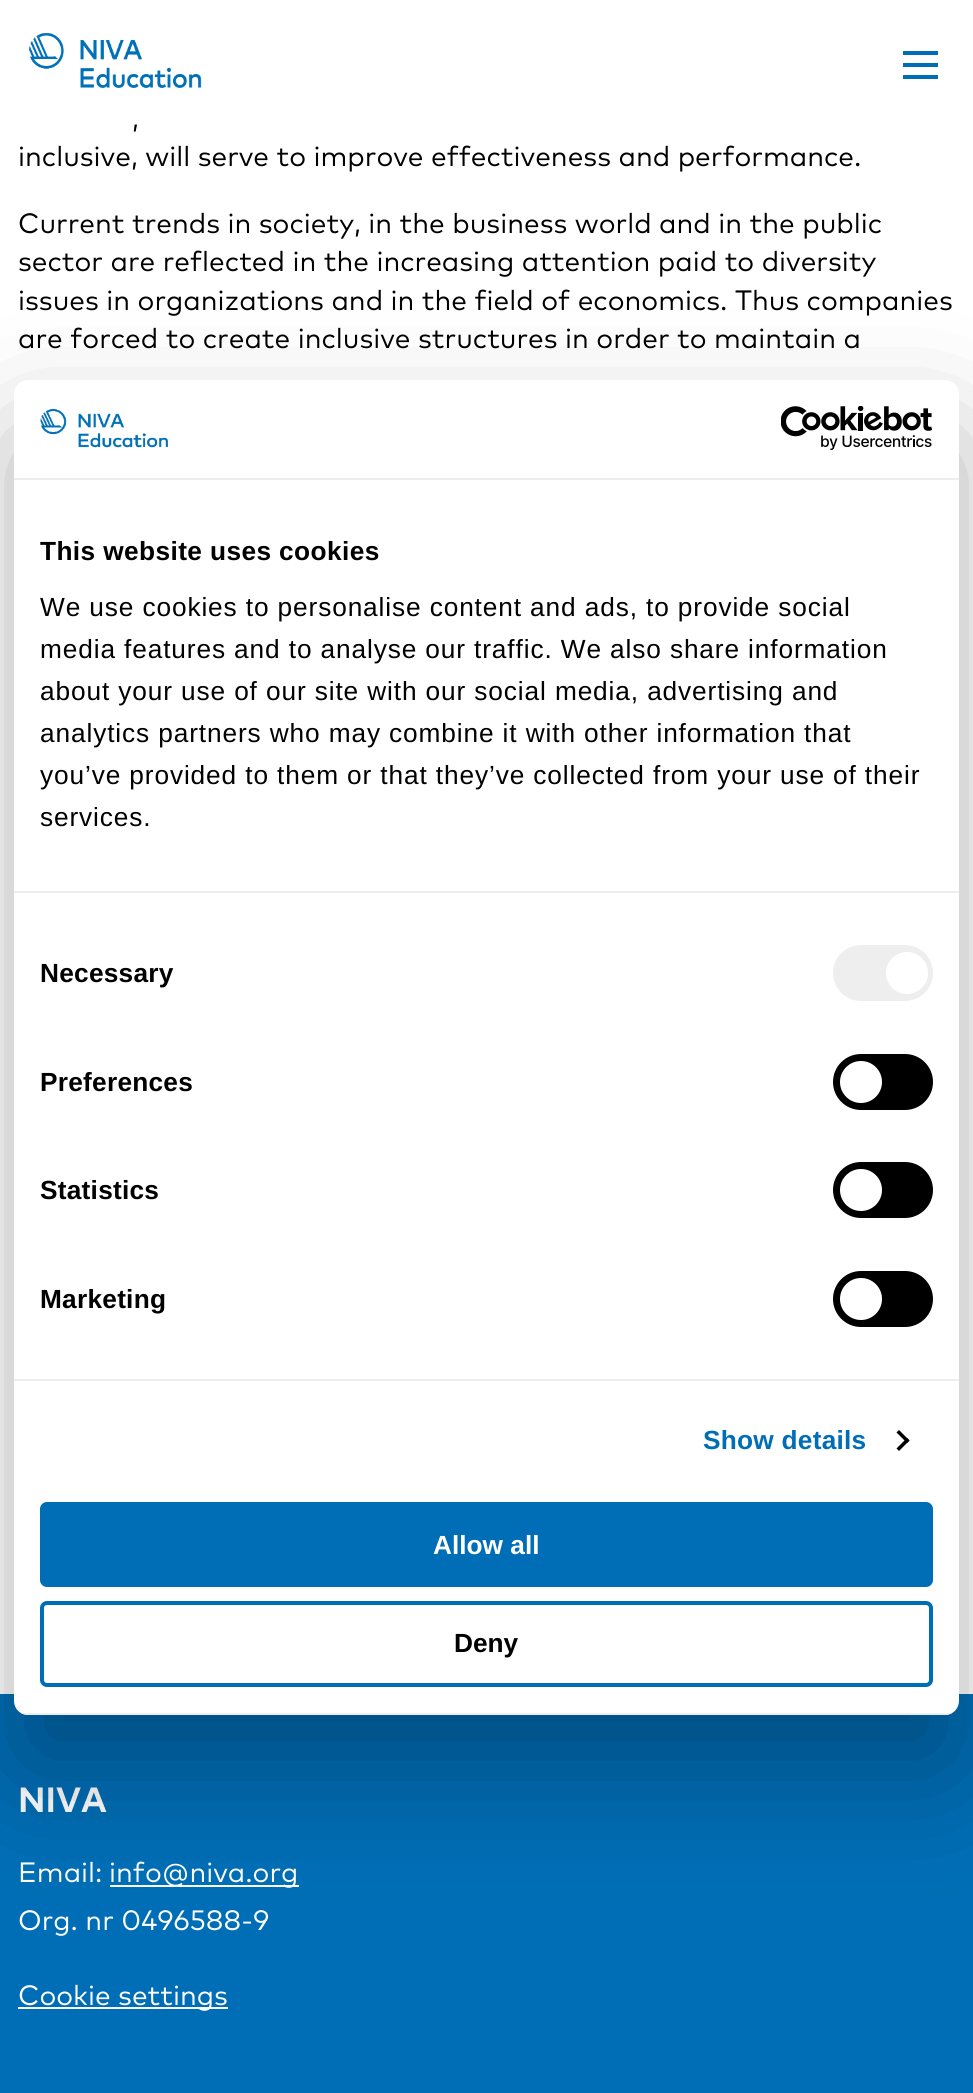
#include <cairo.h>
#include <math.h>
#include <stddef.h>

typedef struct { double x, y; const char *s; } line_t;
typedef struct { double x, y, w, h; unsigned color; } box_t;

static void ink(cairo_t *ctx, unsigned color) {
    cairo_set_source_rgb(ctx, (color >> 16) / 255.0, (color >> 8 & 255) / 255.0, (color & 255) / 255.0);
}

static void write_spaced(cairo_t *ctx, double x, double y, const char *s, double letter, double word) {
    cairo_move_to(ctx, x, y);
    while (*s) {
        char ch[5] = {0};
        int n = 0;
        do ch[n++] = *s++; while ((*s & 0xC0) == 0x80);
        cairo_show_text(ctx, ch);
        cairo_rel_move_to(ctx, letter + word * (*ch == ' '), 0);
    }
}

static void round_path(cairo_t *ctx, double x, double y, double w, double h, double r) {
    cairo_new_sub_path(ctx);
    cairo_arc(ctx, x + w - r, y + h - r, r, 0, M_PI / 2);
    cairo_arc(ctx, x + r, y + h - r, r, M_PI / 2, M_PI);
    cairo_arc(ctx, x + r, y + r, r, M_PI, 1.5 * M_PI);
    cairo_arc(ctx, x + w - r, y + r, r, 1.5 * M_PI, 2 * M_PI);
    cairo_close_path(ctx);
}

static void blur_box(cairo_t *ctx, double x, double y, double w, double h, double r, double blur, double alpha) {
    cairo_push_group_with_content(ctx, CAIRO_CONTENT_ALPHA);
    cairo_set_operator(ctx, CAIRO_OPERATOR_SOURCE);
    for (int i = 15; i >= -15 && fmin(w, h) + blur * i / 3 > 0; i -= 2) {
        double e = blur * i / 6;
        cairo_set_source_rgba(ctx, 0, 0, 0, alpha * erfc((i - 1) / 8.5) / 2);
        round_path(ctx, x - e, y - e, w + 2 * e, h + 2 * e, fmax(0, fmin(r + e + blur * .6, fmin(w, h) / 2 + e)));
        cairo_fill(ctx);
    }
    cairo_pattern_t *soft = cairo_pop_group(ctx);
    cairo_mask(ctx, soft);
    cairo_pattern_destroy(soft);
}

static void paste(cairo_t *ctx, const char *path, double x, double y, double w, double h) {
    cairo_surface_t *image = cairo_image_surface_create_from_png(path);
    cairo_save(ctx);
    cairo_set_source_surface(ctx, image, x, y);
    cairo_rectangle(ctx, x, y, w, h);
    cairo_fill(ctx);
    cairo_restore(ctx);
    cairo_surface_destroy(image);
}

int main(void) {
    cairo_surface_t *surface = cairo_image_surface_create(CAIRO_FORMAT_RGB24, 973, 2093);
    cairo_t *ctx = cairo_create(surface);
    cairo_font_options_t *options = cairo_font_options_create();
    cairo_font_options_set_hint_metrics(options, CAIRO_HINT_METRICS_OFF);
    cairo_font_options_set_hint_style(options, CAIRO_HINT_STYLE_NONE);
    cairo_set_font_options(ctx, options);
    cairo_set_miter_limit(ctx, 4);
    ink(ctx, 0xFFFFFF);
    cairo_paint(ctx);
    paste(ctx, "media/1.png", 28, 33, 174, 55);
    {
        static const box_t items[] = {
            {903, 75, 35, 4, 0x006EB6},
            {903, 63, 35, 4, 0x006EB6},
            {903, 51, 35, 4, 0x006EB6},
        };
        for (size_t i = 0; i < sizeof items / sizeof *items; i++) {
            ink(ctx, items[i].color);
            cairo_rectangle(ctx, items[i].x, items[i].y, items[i].w, items[i].h);
            cairo_fill(ctx);
        }
    }
    cairo_select_font_face(ctx, "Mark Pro", CAIRO_FONT_SLANT_NORMAL, CAIRO_FONT_WEIGHT_NORMAL);
    cairo_set_font_size(ctx, 28);
    ink(ctx, 0x000000);
    {
        static const line_t items[] = {
            {132, 128, ","},
            {18, 166, "inclusive, will serve to improve effectiveness and performance."},
            {18, 233, "Current trends in society, in the business world and in the public"},
            {18, 271, "sector are reflected in the increasing attention paid to diversity"},
            {18, 310, "issues in organizations and in the field of economics. Thus companies"},
            {18, 348, "are forced to create inclusive structures in order to maintain a"},
        };
        for (size_t i = 0; i < sizeof items / sizeof *items; i++) {
            cairo_move_to(ctx, items[i].x, items[i].y);
            cairo_show_text(ctx, items[i].s);
        }
    }
    ink(ctx, 0x006EB6);
    cairo_rectangle(ctx, 0, 1694, 973, 399);
    cairo_fill(ctx);
    cairo_select_font_face(ctx, "Mark Pro", CAIRO_FONT_SLANT_NORMAL, CAIRO_FONT_WEIGHT_BOLD);
    cairo_set_font_size(ctx, 35);
    ink(ctx, 0xFFFFFF);
    cairo_move_to(ctx, 18, 1812);
    cairo_show_text(ctx, "NIVA");
    cairo_select_font_face(ctx, "Mark Pro", CAIRO_FONT_SLANT_NORMAL, CAIRO_FONT_WEIGHT_NORMAL);
    cairo_set_font_size(ctx, 28);
    cairo_move_to(ctx, 18, 1882);
    cairo_show_text(ctx, "Email:");
    cairo_rectangle(ctx, 110, 1885, 189, 2);
    cairo_fill(ctx);
    cairo_move_to(ctx, 109, 1882);
    cairo_show_text(ctx, "info@niva.org");
    cairo_move_to(ctx, 18, 1930);
    cairo_show_text(ctx, "Org. nr 0496588-9");
    cairo_rectangle(ctx, 18, 2007, 210, 2);
    cairo_fill(ctx);
    cairo_move_to(ctx, 18, 2005);
    cairo_show_text(ctx, "Cookie settings");
    ink(ctx, 0x000000);
    blur_box(ctx, 14, 436, 945, 1335, 14, 59.5, 0.3);
    ink(ctx, 0xFFFFFF);
    round_path(ctx, 14, 380, 945, 1335, 14);
    cairo_fill(ctx);
    ink(ctx, 0xEEEEEE);
    cairo_rectangle(ctx, 14, 478, 945, 2);
    cairo_fill(ctx);
    paste(ctx, "media/2.png", 40, 408, 128, 40);
    paste(ctx, "media/3.png", 781, 406, 152, 44);
    cairo_rectangle(ctx, 14, 891, 945, 2);
    cairo_fill(ctx);
    cairo_select_font_face(ctx, "Liberation Sans", CAIRO_FONT_SLANT_NORMAL, CAIRO_FONT_WEIGHT_BOLD);
    cairo_set_font_size(ctx, 26.25);
    ink(ctx, 0x000000);
    write_spaced(ctx, 40, 560, "This website uses cookies", 0.4, 0);
    cairo_select_font_face(ctx, "Liberation Sans", CAIRO_FONT_SLANT_NORMAL, CAIRO_FONT_WEIGHT_NORMAL);
    {
        static const line_t items[] = {
            {40, 616, "We use cookies to personalise content and ads, to provide social"},
            {40, 658, "media features and to analyse our traffic. We also share information"},
            {40, 700, "about your use of our site with our social media, advertising and"},
            {40, 742, "analytics partners who may combine it with other information that"},
            {40, 784, "you’ve provided to them or that they’ve collected from your use of their"},
            {40, 826, "services."},
        };
        for (size_t i = 0; i < sizeof items / sizeof *items; i++) {
            write_spaced(ctx, items[i].x, items[i].y, items[i].s, 0.88, 0);
        }
    }
    ink(ctx, 0xEEEEEE);
    cairo_rectangle(ctx, 14, 1379, 945, 2);
    cairo_fill(ctx);
    cairo_select_font_face(ctx, "Liberation Sans", CAIRO_FONT_SLANT_NORMAL, CAIRO_FONT_WEIGHT_BOLD);
    ink(ctx, 0x000000);
    write_spaced(ctx, 40, 982, "Necessary", 0.25, 0);
    ink(ctx, 0xEEEEEE);
    round_path(ctx, 833, 945, 100, 56, 28);
    cairo_fill(ctx);
    ink(ctx, 0xFFFFFF);
    cairo_arc(ctx, 907, 973, 21, 0, 2 * M_PI);
    cairo_fill(ctx);
    ink(ctx, 0x000000);
    write_spaced(ctx, 40, 1091, "Preferences", 0.25, 0);
    round_path(ctx, 833, 1054, 100, 56, 28);
    cairo_fill(ctx);
    ink(ctx, 0xFFFFFF);
    cairo_arc(ctx, 861, 1082, 21, 0, 2 * M_PI);
    cairo_fill(ctx);
    ink(ctx, 0x000000);
    write_spaced(ctx, 40, 1199, "Statistics", 0.25, 0);
    round_path(ctx, 833, 1162, 100, 56, 28);
    cairo_fill(ctx);
    ink(ctx, 0xFFFFFF);
    cairo_arc(ctx, 861, 1190, 21, 0, 2 * M_PI);
    cairo_fill(ctx);
    ink(ctx, 0x000000);
    write_spaced(ctx, 40, 1308, "Marketing", 0.25, 0);
    round_path(ctx, 833, 1271, 100, 56, 28);
    cairo_fill(ctx);
    ink(ctx, 0xFFFFFF);
    cairo_arc(ctx, 861, 1299, 21, 0, 2 * M_PI);
    cairo_fill(ctx);
    ink(ctx, 0x006EB6);
    write_spaced(ctx, 703, 1449, "Show details", 0.25, 0);
    ink(ctx, 0x000000);
    cairo_new_path(ctx);
    cairo_move_to(ctx, 899, 1430);
    cairo_line_to(ctx, 909.5, 1440.5);
    cairo_line_to(ctx, 907, 1443);
    cairo_line_to(ctx, 896.5, 1432.5);
    cairo_close_path(ctx);
    cairo_fill(ctx);
    cairo_new_path(ctx);
    cairo_move_to(ctx, 907, 1438);
    cairo_line_to(ctx, 909.5, 1440.5);
    cairo_line_to(ctx, 899, 1451);
    cairo_line_to(ctx, 896.5, 1448.5);
    cairo_close_path(ctx);
    cairo_fill(ctx);
    cairo_save(ctx);
    round_path(ctx, 14, 380, 945, 1335, 14);
    cairo_clip(ctx);
    ink(ctx, 0xEEEEEE);
    cairo_rectangle(ctx, 14, 1713, 945, 2);
    cairo_fill(ctx);
    cairo_restore(ctx);
    ink(ctx, 0x006EB6);
    round_path(ctx, 42, 1504, 889, 81, 5);
    cairo_fill_preserve(ctx);
    cairo_set_line_width(ctx, 4);
    cairo_stroke(ctx);
    ink(ctx, 0xFFFFFF);
    cairo_move_to(ctx, 433, 1554);
    cairo_show_text(ctx, "Allow all");
    round_path(ctx, 42, 1603, 889, 82, 5);
    ink(ctx, 0x006EB6);
    cairo_stroke(ctx);
    ink(ctx, 0x000000);
    cairo_move_to(ctx, 454, 1652);
    cairo_show_text(ctx, "Deny");
    cairo_surface_write_to_png(surface, "image.png");
    cairo_font_options_destroy(options);
    cairo_destroy(ctx);
    cairo_surface_destroy(surface);
    return 0;
}
